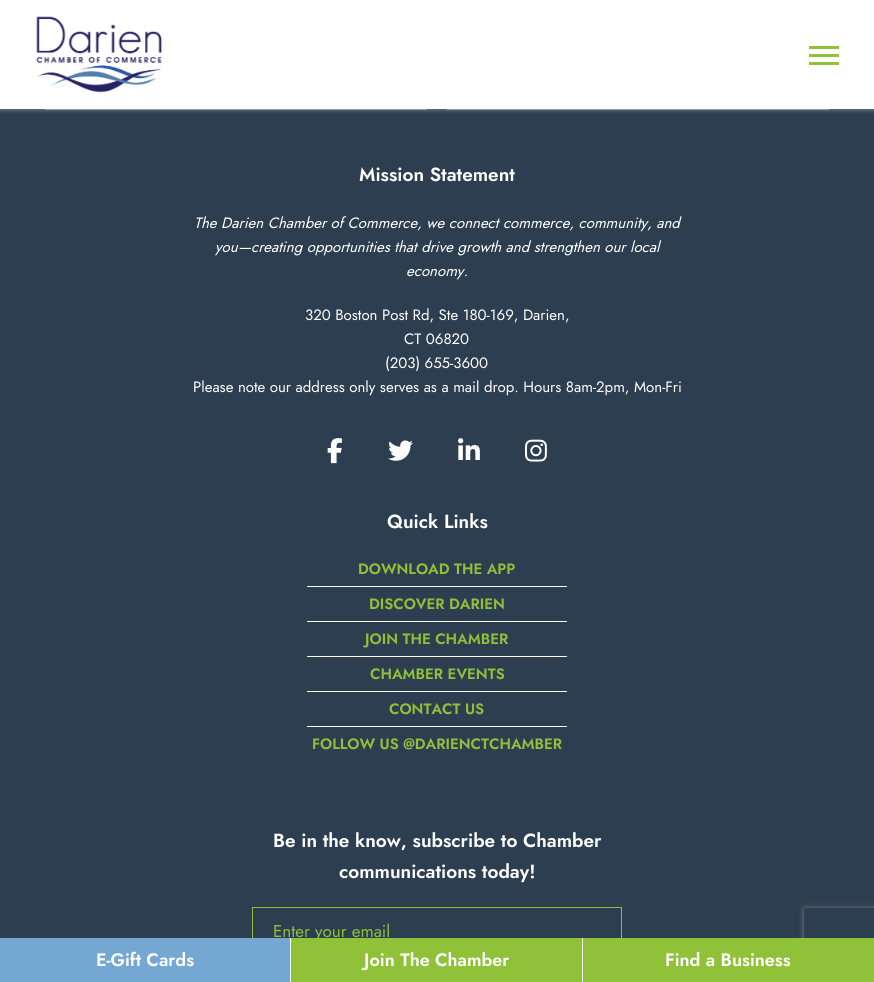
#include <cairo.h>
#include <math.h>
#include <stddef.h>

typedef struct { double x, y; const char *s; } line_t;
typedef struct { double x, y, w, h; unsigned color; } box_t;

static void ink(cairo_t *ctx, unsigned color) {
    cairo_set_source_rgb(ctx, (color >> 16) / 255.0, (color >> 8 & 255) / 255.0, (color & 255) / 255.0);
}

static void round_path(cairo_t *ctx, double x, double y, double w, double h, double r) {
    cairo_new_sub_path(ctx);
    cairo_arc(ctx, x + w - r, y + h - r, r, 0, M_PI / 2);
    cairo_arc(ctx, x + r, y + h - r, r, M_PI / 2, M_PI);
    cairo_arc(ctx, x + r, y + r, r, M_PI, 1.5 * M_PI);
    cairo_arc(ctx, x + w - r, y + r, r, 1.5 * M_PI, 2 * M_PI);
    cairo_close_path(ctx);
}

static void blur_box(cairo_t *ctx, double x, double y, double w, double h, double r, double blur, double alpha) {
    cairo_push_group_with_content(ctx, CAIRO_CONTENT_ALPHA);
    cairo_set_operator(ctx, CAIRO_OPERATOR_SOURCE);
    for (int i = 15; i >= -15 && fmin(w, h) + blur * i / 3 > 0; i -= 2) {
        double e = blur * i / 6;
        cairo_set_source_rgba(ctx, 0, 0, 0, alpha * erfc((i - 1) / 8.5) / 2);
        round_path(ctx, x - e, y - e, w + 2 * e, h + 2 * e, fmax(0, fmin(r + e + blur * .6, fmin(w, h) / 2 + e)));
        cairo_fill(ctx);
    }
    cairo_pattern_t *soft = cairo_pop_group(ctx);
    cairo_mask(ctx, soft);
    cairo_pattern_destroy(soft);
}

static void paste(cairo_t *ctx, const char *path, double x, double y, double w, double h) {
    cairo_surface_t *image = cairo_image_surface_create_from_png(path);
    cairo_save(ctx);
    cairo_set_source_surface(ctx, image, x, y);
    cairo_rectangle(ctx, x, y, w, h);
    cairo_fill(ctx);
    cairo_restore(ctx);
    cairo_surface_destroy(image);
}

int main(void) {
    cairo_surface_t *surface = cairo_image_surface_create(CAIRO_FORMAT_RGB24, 874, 982);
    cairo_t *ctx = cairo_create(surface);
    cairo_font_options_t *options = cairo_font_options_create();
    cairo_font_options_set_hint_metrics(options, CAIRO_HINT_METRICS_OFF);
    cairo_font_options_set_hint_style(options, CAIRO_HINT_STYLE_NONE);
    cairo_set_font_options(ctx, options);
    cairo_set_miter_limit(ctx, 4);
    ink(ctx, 0x2D3E51);
    cairo_paint(ctx);
    cairo_rectangle(ctx, 45.5, 20.5, 381, 89);
    ink(ctx, 0x74A7D1);
    cairo_set_line_width(ctx, 1);
    cairo_stroke(ctx);
    cairo_rectangle(ctx, 447.5, 20.5, 381, 89);
    cairo_stroke(ctx);
    ink(ctx, 0x959595);
    blur_box(ctx, 0, 0, 874, 109, 0, 3, 1);
    ink(ctx, 0xFFFFFF);
    cairo_rectangle(ctx, 0, 0, 874, 109);
    cairo_fill(ctx);
    paste(ctx, "media/1.png", 36, 16, 127, 77);
    {
        static const box_t items[] = {
            {809, 46, 30, 3, 0x90C239},
            {809, 54, 30, 3, 0x90C239},
            {809, 62, 30, 3, 0x90C239},
        };
        for (size_t i = 0; i < sizeof items / sizeof *items; i++) {
            ink(ctx, items[i].color);
            cairo_rectangle(ctx, items[i].x, items[i].y, items[i].w, items[i].h);
            cairo_fill(ctx);
        }
    }
    cairo_select_font_face(ctx, "Jost SemiBold", CAIRO_FONT_SLANT_NORMAL, CAIRO_FONT_WEIGHT_NORMAL);
    cairo_set_font_size(ctx, 19);
    ink(ctx, 0xFFFFFF);
    cairo_move_to(ctx, 359, 181);
    cairo_show_text(ctx, "Mission Statement");
    cairo_select_font_face(ctx, "Jost", CAIRO_FONT_SLANT_ITALIC, CAIRO_FONT_WEIGHT_NORMAL);
    cairo_set_font_size(ctx, 15);
    {
        static const line_t items[] = {
            {194, 228, "The Darien Chamber of Commerce, we connect commerce, community, and"},
            {215, 252, "you—creating opportunities that drive growth and strengthen our local"},
            {406, 276, "economy."},
        };
        for (size_t i = 0; i < sizeof items / sizeof *items; i++) {
            cairo_move_to(ctx, items[i].x, items[i].y);
            cairo_show_text(ctx, items[i].s);
        }
    }
    cairo_select_font_face(ctx, "Jost", CAIRO_FONT_SLANT_NORMAL, CAIRO_FONT_WEIGHT_NORMAL);
    {
        static const line_t items[] = {
            {305, 320, "320 Boston Post Rd, Ste 180-169, Darien,"},
            {404, 344, "CT 06820"},
            {385, 368, "(203) 655-3600"},
            {193, 392, "Please note our address only serves as a mail drop. Hours 8am-2pm, Mon-Fri"},
        };
        for (size_t i = 0; i < sizeof items / sizeof *items; i++) {
            cairo_move_to(ctx, items[i].x, items[i].y);
            cairo_show_text(ctx, items[i].s);
        }
    }
    paste(ctx, "media/2.png", 327, 438, 15, 26);
    paste(ctx, "media/3.png", 388, 440, 25, 21);
    paste(ctx, "media/4.png", 458, 438, 22, 22);
    paste(ctx, "media/5.png", 525, 439, 22, 23);
    cairo_select_font_face(ctx, "Jost SemiBold", CAIRO_FONT_SLANT_NORMAL, CAIRO_FONT_WEIGHT_NORMAL);
    cairo_set_font_size(ctx, 19);
    cairo_move_to(ctx, 387, 528);
    cairo_show_text(ctx, "Quick Links");
    cairo_rectangle(ctx, 307, 586, 260, 1);
    cairo_fill(ctx);
    cairo_set_font_size(ctx, 15);
    ink(ctx, 0x90C239);
    cairo_move_to(ctx, 358, 574);
    cairo_show_text(ctx, "DOWNLOAD THE APP");
    ink(ctx, 0xFFFFFF);
    cairo_rectangle(ctx, 307, 621, 260, 1);
    cairo_fill(ctx);
    ink(ctx, 0x90C239);
    cairo_move_to(ctx, 369, 609);
    cairo_show_text(ctx, "DISCOVER DARIEN");
    ink(ctx, 0xFFFFFF);
    cairo_rectangle(ctx, 307, 656, 260, 1);
    cairo_fill(ctx);
    ink(ctx, 0x90C239);
    cairo_move_to(ctx, 365, 644);
    cairo_show_text(ctx, "JOIN THE CHAMBER");
    ink(ctx, 0xFFFFFF);
    cairo_rectangle(ctx, 307, 691, 260, 1);
    cairo_fill(ctx);
    ink(ctx, 0x90C239);
    cairo_move_to(ctx, 370, 679);
    cairo_show_text(ctx, "CHAMBER EVENTS");
    ink(ctx, 0xFFFFFF);
    cairo_rectangle(ctx, 307, 726, 260, 1);
    cairo_fill(ctx);
    ink(ctx, 0x90C239);
    cairo_move_to(ctx, 389, 714);
    cairo_show_text(ctx, "CONTACT US");
    cairo_move_to(ctx, 312, 749);
    cairo_show_text(ctx, "FOLLOW US @DARIENCTCHAMBER");
    cairo_set_font_size(ctx, 19);
    ink(ctx, 0xFFFFFF);
    cairo_move_to(ctx, 273, 847);
    cairo_show_text(ctx, "Be in the know, subscribe to Chamber");
    cairo_move_to(ctx, 339, 878);
    cairo_show_text(ctx, "communications today!");
    cairo_rectangle(ctx, 252.5, 907.5, 369, 47);
    ink(ctx, 0x90C239);
    cairo_stroke(ctx);
    cairo_select_font_face(ctx, "Jost", CAIRO_FONT_SLANT_NORMAL, CAIRO_FONT_WEIGHT_NORMAL);
    cairo_set_font_size(ctx, 17);
    cairo_move_to(ctx, 273, 937);
    cairo_show_text(ctx, "Enter your email");
    ink(ctx, 0xFFFFFF);
    cairo_rectangle(ctx, 290, 938, 1, 44);
    cairo_fill(ctx);
    ink(ctx, 0x74A7D1);
    cairo_rectangle(ctx, 0, 938, 290, 44);
    cairo_fill(ctx);
    cairo_select_font_face(ctx, "Jost SemiBold", CAIRO_FONT_SLANT_NORMAL, CAIRO_FONT_WEIGHT_NORMAL);
    cairo_set_font_size(ctx, 18);
    ink(ctx, 0xFFFFFF);
    cairo_move_to(ctx, 96, 966);
    cairo_show_text(ctx, "E-Gift Cards");
    cairo_rectangle(ctx, 582, 938, 1, 44);
    cairo_fill(ctx);
    ink(ctx, 0x90C239);
    cairo_rectangle(ctx, 291, 938, 291, 44);
    cairo_fill(ctx);
    ink(ctx, 0xFFFFFF);
    cairo_move_to(ctx, 364, 966);
    cairo_show_text(ctx, "Join The Chamber");
    cairo_save(ctx);
    cairo_set_fill_rule(ctx, CAIRO_FILL_RULE_EVEN_ODD);
    cairo_new_path(ctx);
    cairo_move_to(ctx, 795, 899);
    cairo_line_to(ctx, 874, 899);
    cairo_line_to(ctx, 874, 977);
    cairo_line_to(ctx, 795, 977);
    cairo_close_path(ctx);
    cairo_move_to(ctx, 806, 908);
    cairo_line_to(ctx, 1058, 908);
    cairo_curve_to(ctx, 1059, 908, 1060, 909, 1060, 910);
    cairo_line_to(ctx, 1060, 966);
    cairo_curve_to(ctx, 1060, 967, 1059, 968, 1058, 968);
    cairo_line_to(ctx, 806, 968);
    cairo_curve_to(ctx, 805, 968, 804, 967, 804, 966);
    cairo_line_to(ctx, 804, 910);
    cairo_curve_to(ctx, 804, 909, 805, 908, 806, 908);
    cairo_close_path(ctx);
    cairo_clip(ctx);
    ink(ctx, 0x808080);
    blur_box(ctx, 804, 908, 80, 60, 2, 2.5, 1);
    cairo_restore(ctx);
    ink(ctx, 0x90C239);
    cairo_rectangle(ctx, 583, 938, 291, 44);
    cairo_fill(ctx);
    ink(ctx, 0xFFFFFF);
    cairo_move_to(ctx, 665, 966);
    cairo_show_text(ctx, "Find a Business");
    cairo_surface_write_to_png(surface, "image.png");
    cairo_font_options_destroy(options);
    cairo_destroy(ctx);
    cairo_surface_destroy(surface);
    return 0;
}
